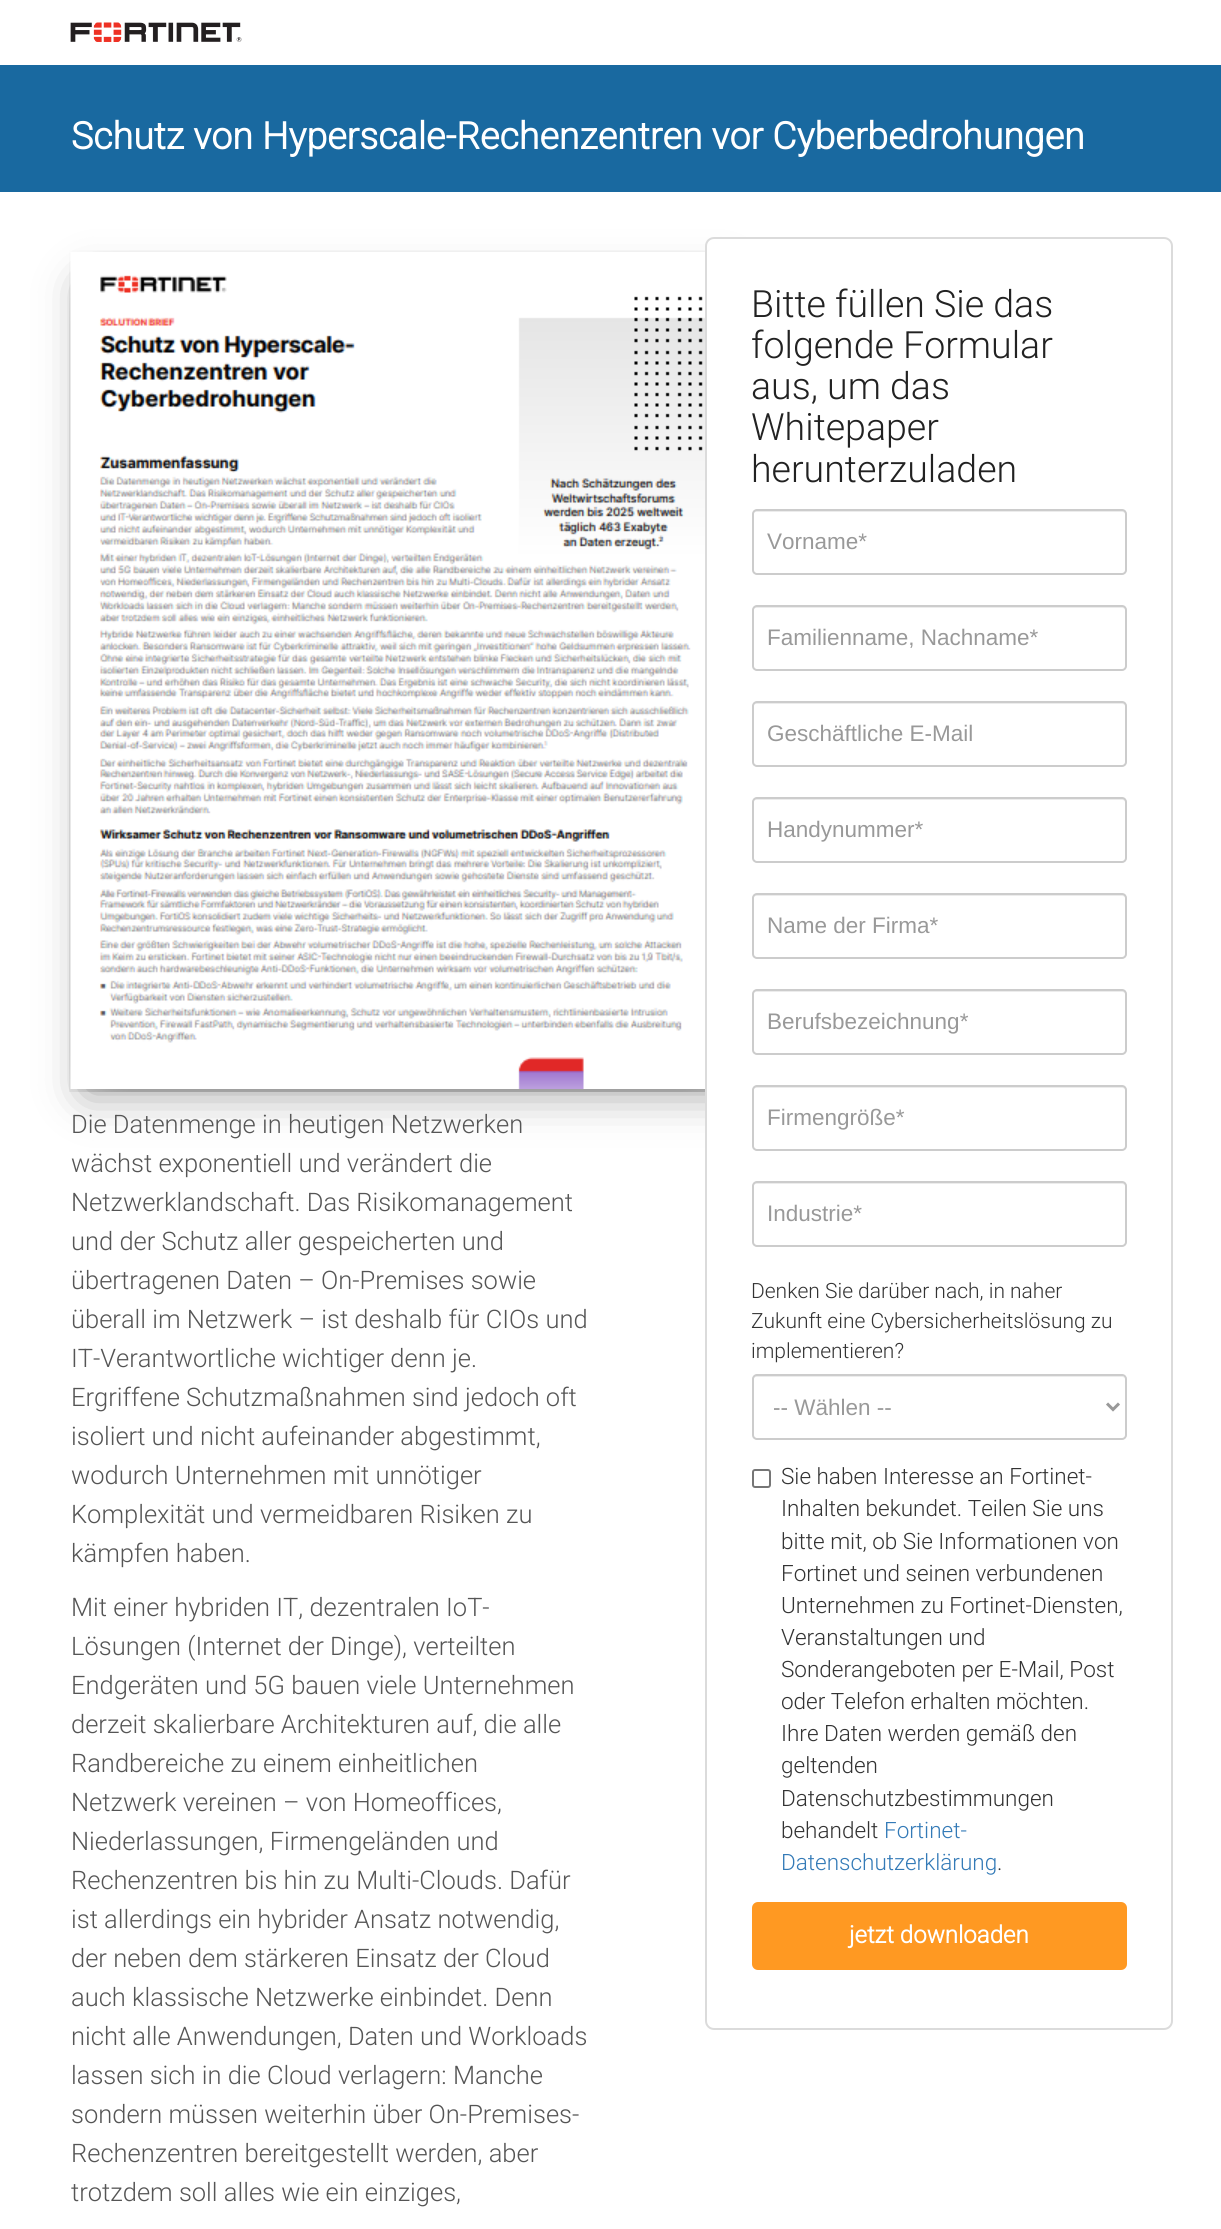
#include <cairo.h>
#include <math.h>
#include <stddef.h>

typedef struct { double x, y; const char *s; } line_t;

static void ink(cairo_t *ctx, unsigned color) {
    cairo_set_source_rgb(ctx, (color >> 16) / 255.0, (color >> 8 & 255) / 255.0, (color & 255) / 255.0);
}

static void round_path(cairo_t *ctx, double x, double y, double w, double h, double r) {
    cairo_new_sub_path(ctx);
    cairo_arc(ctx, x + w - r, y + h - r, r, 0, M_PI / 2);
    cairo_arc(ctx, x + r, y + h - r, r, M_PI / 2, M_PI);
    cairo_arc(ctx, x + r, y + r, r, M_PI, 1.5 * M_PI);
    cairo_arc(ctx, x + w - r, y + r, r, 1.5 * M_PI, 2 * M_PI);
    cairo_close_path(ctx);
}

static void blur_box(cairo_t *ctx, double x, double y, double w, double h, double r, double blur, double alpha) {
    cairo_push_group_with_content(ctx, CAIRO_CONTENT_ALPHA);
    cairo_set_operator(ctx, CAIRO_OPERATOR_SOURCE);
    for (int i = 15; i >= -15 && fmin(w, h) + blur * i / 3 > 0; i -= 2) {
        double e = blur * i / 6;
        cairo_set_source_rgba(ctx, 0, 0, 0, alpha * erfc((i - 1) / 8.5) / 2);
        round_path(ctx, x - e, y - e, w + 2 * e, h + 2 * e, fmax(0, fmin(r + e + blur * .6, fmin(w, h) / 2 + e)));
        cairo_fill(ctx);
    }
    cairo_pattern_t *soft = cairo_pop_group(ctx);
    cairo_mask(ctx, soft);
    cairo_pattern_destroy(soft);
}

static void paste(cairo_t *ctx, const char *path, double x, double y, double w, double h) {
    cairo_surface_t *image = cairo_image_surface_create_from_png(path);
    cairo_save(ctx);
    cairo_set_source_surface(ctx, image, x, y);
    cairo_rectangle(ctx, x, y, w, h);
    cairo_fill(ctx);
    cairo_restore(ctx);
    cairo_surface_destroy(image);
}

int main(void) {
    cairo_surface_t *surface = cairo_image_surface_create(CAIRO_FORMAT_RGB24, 1221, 2229);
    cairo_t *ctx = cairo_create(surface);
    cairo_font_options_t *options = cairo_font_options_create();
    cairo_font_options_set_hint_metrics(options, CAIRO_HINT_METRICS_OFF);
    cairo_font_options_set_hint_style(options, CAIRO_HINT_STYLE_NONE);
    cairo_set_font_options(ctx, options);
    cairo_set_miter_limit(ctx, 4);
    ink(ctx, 0xFFFFFF);
    cairo_paint(ctx);
    paste(ctx, "media/1.png", 70, 22, 172, 20);
    ink(ctx, 0x1969A0);
    cairo_rectangle(ctx, 0, 65, 1221, 127);
    cairo_fill(ctx);
    cairo_select_font_face(ctx, "Roboto", CAIRO_FONT_SLANT_NORMAL, CAIRO_FONT_WEIGHT_BOLD);
    cairo_set_font_size(ctx, 37.5);
    ink(ctx, 0xFFFFFF);
    cairo_move_to(ctx, 71, 149);
    cairo_show_text(ctx, "Schutz von Hyperscale-Rechenzentren vor Cyberbedrohungen");
    ink(ctx, 0x000000);
    blur_box(ctx, 86, 285, 642, 807, 0, 22.5, 0.4);
    paste(ctx, "media/2.png", 69, 250, 636, 842);
    cairo_select_font_face(ctx, "Roboto Light", CAIRO_FONT_SLANT_NORMAL, CAIRO_FONT_WEIGHT_NORMAL);
    cairo_set_font_size(ctx, 25.5);
    ink(ctx, 0x555555);
    {
        static const line_t items[] = {
            {71, 1133, "Die Datenmenge in heutigen Netzwerken"},
            {71, 1172, "wächst exponentiell und verändert die"},
            {71, 1211, "Netzwerklandschaft. Das Risikomanagement"},
            {71, 1250, "und der Schutz aller gespeicherten und"},
            {71, 1289, "übertragenen Daten – On-Premises sowie"},
            {71, 1328, "überall im Netzwerk – ist deshalb für CIOs und"},
            {71, 1367, "IT-Verantwortliche wichtiger denn je."},
            {71, 1406, "Ergriffene Schutzmaßnahmen sind jedoch oft"},
            {71, 1445, "isoliert und nicht aufeinander abgestimmt,"},
            {71, 1484, "wodurch Unternehmen mit unnötiger"},
            {71, 1523, "Komplexität und vermeidbaren Risiken zu"},
            {71, 1562, "kämpfen haben."},
            {71, 1616, "Mit einer hybriden IT, dezentralen IoT-"},
            {71, 1655, "Lösungen (Internet der Dinge), verteilten"},
            {71, 1694, "Endgeräten und 5G bauen viele Unternehmen"},
            {71, 1733, "derzeit skalierbare Architekturen auf, die alle"},
            {71, 1772, "Randbereiche zu einem einheitlichen"},
            {71, 1811, "Netzwerk vereinen – von Homeoffices,"},
            {71, 1850, "Niederlassungen, Firmengeländen und"},
            {71, 1889, "Rechenzentren bis hin zu Multi-Clouds. Dafür"},
            {71, 1928, "ist allerdings ein hybrider Ansatz notwendig,"},
            {71, 1967, "der neben dem stärkeren Einsatz der Cloud"},
            {71, 2006, "auch klassische Netzwerke einbindet. Denn"},
            {71, 2045, "nicht alle Anwendungen, Daten und Workloads"},
            {71, 2084, "lassen sich in die Cloud verlagern: Manche"},
            {71, 2123, "sondern müssen weiterhin über On-Premises-"},
            {71, 2162, "Rechenzentren bereitgestellt werden, aber"},
            {71, 2201, "trotzdem soll alles wie ein einziges,"},
        };
        for (size_t i = 0; i < sizeof items / sizeof *items; i++) {
            cairo_move_to(ctx, items[i].x, items[i].y);
            cairo_show_text(ctx, items[i].s);
        }
    }
    ink(ctx, 0xFFFFFF);
    round_path(ctx, 706, 238, 466, 1791, 8);
    cairo_fill_preserve(ctx);
    ink(ctx, 0xDBDBDB);
    cairo_stroke(ctx);
    cairo_set_font_size(ctx, 37.5);
    ink(ctx, 0x222222);
    {
        static const line_t items[] = {
            {751, 317, "Bitte füllen Sie das"},
            {751, 358, "folgende Formular"},
            {751, 399, "aus, um das"},
            {751, 440, "Whitepaper"},
            {751, 482, "herunterzuladen"},
        };
        for (size_t i = 0; i < sizeof items / sizeof *items; i++) {
            cairo_move_to(ctx, items[i].x, items[i].y);
            cairo_show_text(ctx, items[i].s);
        }
    }
    ink(ctx, 0xECECEC);
    cairo_new_path(ctx);
    cairo_move_to(ctx, 756, 512);
    cairo_line_to(ctx, 1122, 512);
    cairo_curve_to(ctx, 1124, 512, 1125, 513, 1125, 514);
    cairo_curve_to(ctx, 1125, 512, 1124, 510, 1122, 510);
    cairo_line_to(ctx, 756, 510);
    cairo_line_to(ctx, 754, 511);
    cairo_line_to(ctx, 753, 514);
    cairo_curve_to(ctx, 753, 513, 754, 512, 756, 512);
    cairo_close_path(ctx);
    cairo_fill(ctx);
    round_path(ctx, 753, 510, 373, 64, 4);
    ink(ctx, 0xCCCCCC);
    cairo_stroke(ctx);
    cairo_select_font_face(ctx, "Liberation Sans", CAIRO_FONT_SLANT_NORMAL, CAIRO_FONT_WEIGHT_NORMAL);
    cairo_set_font_size(ctx, 22.5);
    ink(ctx, 0x999999);
    cairo_move_to(ctx, 767, 549);
    cairo_show_text(ctx, "Vorname*");
    ink(ctx, 0xECECEC);
    cairo_new_path(ctx);
    cairo_move_to(ctx, 756, 608);
    cairo_line_to(ctx, 1122, 608);
    cairo_curve_to(ctx, 1124, 608, 1125, 609, 1125, 610);
    cairo_curve_to(ctx, 1125, 608, 1124, 606, 1122, 606);
    cairo_line_to(ctx, 756, 606);
    cairo_line_to(ctx, 754, 607);
    cairo_line_to(ctx, 753, 610);
    cairo_curve_to(ctx, 753, 609, 754, 608, 756, 608);
    cairo_close_path(ctx);
    cairo_fill(ctx);
    round_path(ctx, 753, 606, 373, 64, 4);
    ink(ctx, 0xCCCCCC);
    cairo_stroke(ctx);
    ink(ctx, 0x999999);
    cairo_move_to(ctx, 767, 645);
    cairo_show_text(ctx, "Familienname, Nachname*");
    ink(ctx, 0xECECEC);
    cairo_new_path(ctx);
    cairo_move_to(ctx, 756, 704);
    cairo_line_to(ctx, 1122, 704);
    cairo_curve_to(ctx, 1124, 704, 1125, 705, 1125, 706);
    cairo_curve_to(ctx, 1125, 704, 1124, 702, 1122, 702);
    cairo_line_to(ctx, 756, 702);
    cairo_line_to(ctx, 754, 703);
    cairo_line_to(ctx, 753, 706);
    cairo_curve_to(ctx, 753, 705, 754, 704, 756, 704);
    cairo_close_path(ctx);
    cairo_fill(ctx);
    round_path(ctx, 753, 702, 373, 64, 4);
    ink(ctx, 0xCCCCCC);
    cairo_stroke(ctx);
    ink(ctx, 0x999999);
    cairo_move_to(ctx, 767, 741);
    cairo_show_text(ctx, "Geschäftliche E-Mail");
    ink(ctx, 0xECECEC);
    cairo_new_path(ctx);
    cairo_move_to(ctx, 756, 800);
    cairo_line_to(ctx, 1122, 800);
    cairo_curve_to(ctx, 1124, 800, 1125, 801, 1125, 802);
    cairo_curve_to(ctx, 1125, 800, 1124, 798, 1122, 798);
    cairo_line_to(ctx, 756, 798);
    cairo_line_to(ctx, 754, 799);
    cairo_line_to(ctx, 753, 802);
    cairo_curve_to(ctx, 753, 801, 754, 800, 756, 800);
    cairo_close_path(ctx);
    cairo_fill(ctx);
    round_path(ctx, 753, 798, 373, 64, 4);
    ink(ctx, 0xCCCCCC);
    cairo_stroke(ctx);
    ink(ctx, 0x999999);
    cairo_move_to(ctx, 767, 837);
    cairo_show_text(ctx, "Handynummer*");
    ink(ctx, 0xECECEC);
    cairo_new_path(ctx);
    cairo_move_to(ctx, 756, 896);
    cairo_line_to(ctx, 1122, 896);
    cairo_curve_to(ctx, 1124, 896, 1125, 897, 1125, 898);
    cairo_curve_to(ctx, 1125, 896, 1124, 894, 1122, 894);
    cairo_line_to(ctx, 756, 894);
    cairo_line_to(ctx, 754, 895);
    cairo_line_to(ctx, 753, 898);
    cairo_curve_to(ctx, 753, 897, 754, 896, 756, 896);
    cairo_close_path(ctx);
    cairo_fill(ctx);
    round_path(ctx, 753, 894, 373, 64, 4);
    ink(ctx, 0xCCCCCC);
    cairo_stroke(ctx);
    ink(ctx, 0x999999);
    cairo_move_to(ctx, 767, 933);
    cairo_show_text(ctx, "Name der Firma*");
    ink(ctx, 0xECECEC);
    cairo_new_path(ctx);
    cairo_move_to(ctx, 756, 992);
    cairo_line_to(ctx, 1122, 992);
    cairo_curve_to(ctx, 1124, 992, 1125, 993, 1125, 994);
    cairo_curve_to(ctx, 1125, 992, 1124, 990, 1122, 990);
    cairo_line_to(ctx, 756, 990);
    cairo_line_to(ctx, 754, 991);
    cairo_line_to(ctx, 753, 994);
    cairo_curve_to(ctx, 753, 993, 754, 992, 756, 992);
    cairo_close_path(ctx);
    cairo_fill(ctx);
    round_path(ctx, 753, 990, 373, 64, 4);
    ink(ctx, 0xCCCCCC);
    cairo_stroke(ctx);
    ink(ctx, 0x999999);
    cairo_move_to(ctx, 767, 1029);
    cairo_show_text(ctx, "Berufsbezeichnung*");
    ink(ctx, 0xECECEC);
    cairo_new_path(ctx);
    cairo_move_to(ctx, 756, 1088);
    cairo_line_to(ctx, 1122, 1088);
    cairo_curve_to(ctx, 1124, 1088, 1125, 1089, 1125, 1090);
    cairo_curve_to(ctx, 1125, 1088, 1124, 1086, 1122, 1086);
    cairo_line_to(ctx, 756, 1086);
    cairo_line_to(ctx, 754, 1087);
    cairo_line_to(ctx, 753, 1090);
    cairo_curve_to(ctx, 753, 1089, 754, 1088, 756, 1088);
    cairo_close_path(ctx);
    cairo_fill(ctx);
    round_path(ctx, 753, 1086, 373, 64, 4);
    ink(ctx, 0xCCCCCC);
    cairo_stroke(ctx);
    ink(ctx, 0x999999);
    cairo_move_to(ctx, 767, 1125);
    cairo_show_text(ctx, "Firmengröße*");
    ink(ctx, 0xECECEC);
    cairo_new_path(ctx);
    cairo_move_to(ctx, 756, 1184);
    cairo_line_to(ctx, 1122, 1184);
    cairo_curve_to(ctx, 1124, 1184, 1125, 1185, 1125, 1186);
    cairo_curve_to(ctx, 1125, 1184, 1124, 1182, 1122, 1182);
    cairo_line_to(ctx, 756, 1182);
    cairo_line_to(ctx, 754, 1183);
    cairo_line_to(ctx, 753, 1186);
    cairo_curve_to(ctx, 753, 1185, 754, 1184, 756, 1184);
    cairo_close_path(ctx);
    cairo_fill(ctx);
    round_path(ctx, 753, 1182, 373, 64, 4);
    ink(ctx, 0xCCCCCC);
    cairo_stroke(ctx);
    ink(ctx, 0x999999);
    cairo_move_to(ctx, 767, 1221);
    cairo_show_text(ctx, "Industrie*");
    cairo_select_font_face(ctx, "Roboto Light", CAIRO_FONT_SLANT_NORMAL, CAIRO_FONT_WEIGHT_NORMAL);
    cairo_set_font_size(ctx, 21);
    ink(ctx, 0x333333);
    {
        static const line_t items[] = {
            {751, 1298, "Denken Sie darüber nach, in naher"},
            {751, 1328, "Zukunft eine Cybersicherheitslösung zu"},
            {751, 1358, "implementieren?"},
        };
        for (size_t i = 0; i < sizeof items / sizeof *items; i++) {
            cairo_move_to(ctx, items[i].x, items[i].y);
            cairo_show_text(ctx, items[i].s);
        }
    }
    ink(ctx, 0xECECEC);
    cairo_new_path(ctx);
    cairo_move_to(ctx, 756, 1377);
    cairo_line_to(ctx, 1122, 1377);
    cairo_curve_to(ctx, 1124, 1377, 1125, 1378, 1125, 1380);
    cairo_curve_to(ctx, 1125, 1378, 1124, 1376, 1122, 1376);
    cairo_line_to(ctx, 756, 1376);
    cairo_line_to(ctx, 754, 1377);
    cairo_line_to(ctx, 753, 1380);
    cairo_curve_to(ctx, 753, 1378, 754, 1377, 756, 1377);
    cairo_close_path(ctx);
    cairo_fill(ctx);
    round_path(ctx, 753, 1375, 373, 64, 4);
    ink(ctx, 0xCCCCCC);
    cairo_stroke(ctx);
    cairo_new_path(ctx);
    cairo_move_to(ctx, 1107, 1403.5);
    cairo_line_to(ctx, 1113, 1409.5);
    cairo_line_to(ctx, 1119, 1403.5);
    ink(ctx, 0x999999);
    cairo_set_line_width(ctx, 3);
    cairo_stroke(ctx);
    cairo_select_font_face(ctx, "Liberation Sans", CAIRO_FONT_SLANT_NORMAL, CAIRO_FONT_WEIGHT_NORMAL);
    cairo_set_font_size(ctx, 22.5);
    cairo_move_to(ctx, 773, 1415);
    cairo_show_text(ctx, "-- Wählen --");
    round_path(ctx, 753, 1470, 17, 17, 2);
    ink(ctx, 0x767676);
    cairo_set_line_width(ctx, 2);
    cairo_stroke(ctx);
    cairo_select_font_face(ctx, "Roboto Light", CAIRO_FONT_SLANT_NORMAL, CAIRO_FONT_WEIGHT_NORMAL);
    ink(ctx, 0x333333);
    {
        static const line_t items[] = {
            {781, 1484, "Sie haben Interesse an Fortinet-"},
            {781, 1516, "Inhalten bekundet. Teilen Sie uns"},
            {781, 1549, "bitte mit, ob Sie Informationen von"},
            {781, 1581, "Fortinet und seinen verbundenen"},
            {781, 1613, "Unternehmen zu Fortinet-Diensten,"},
            {781, 1645, "Veranstaltungen und"},
            {781, 1677, "Sonderangeboten per E-Mail, Post"},
            {781, 1709, "oder Telefon erhalten möchten."},
            {781, 1741, "Ihre Daten werden gemäß den"},
            {781, 1773, "geltenden"},
            {781, 1806, "Datenschutzbestimmungen"},
            {781, 1838, "behandelt"},
        };
        for (size_t i = 0; i < sizeof items / sizeof *items; i++) {
            cairo_move_to(ctx, items[i].x, items[i].y);
            cairo_show_text(ctx, items[i].s);
        }
    }
    ink(ctx, 0x337AB7);
    cairo_move_to(ctx, 884, 1838);
    cairo_show_text(ctx, "Fortinet-");
    cairo_move_to(ctx, 781, 1870);
    cairo_show_text(ctx, "Datenschutzerklärung");
    ink(ctx, 0x333333);
    cairo_move_to(ctx, 997, 1870);
    cairo_show_text(ctx, ".");
    ink(ctx, 0xFF9922);
    round_path(ctx, 752, 1902, 375, 68, 6);
    cairo_fill(ctx);
    cairo_select_font_face(ctx, "Roboto", CAIRO_FONT_SLANT_NORMAL, CAIRO_FONT_WEIGHT_BOLD);
    cairo_set_font_size(ctx, 24);
    ink(ctx, 0xFFFFFF);
    cairo_move_to(ctx, 849, 1943);
    cairo_show_text(ctx, "jetzt downloaden");
    cairo_surface_write_to_png(surface, "image.png");
    cairo_font_options_destroy(options);
    cairo_destroy(ctx);
    cairo_surface_destroy(surface);
    return 0;
}
